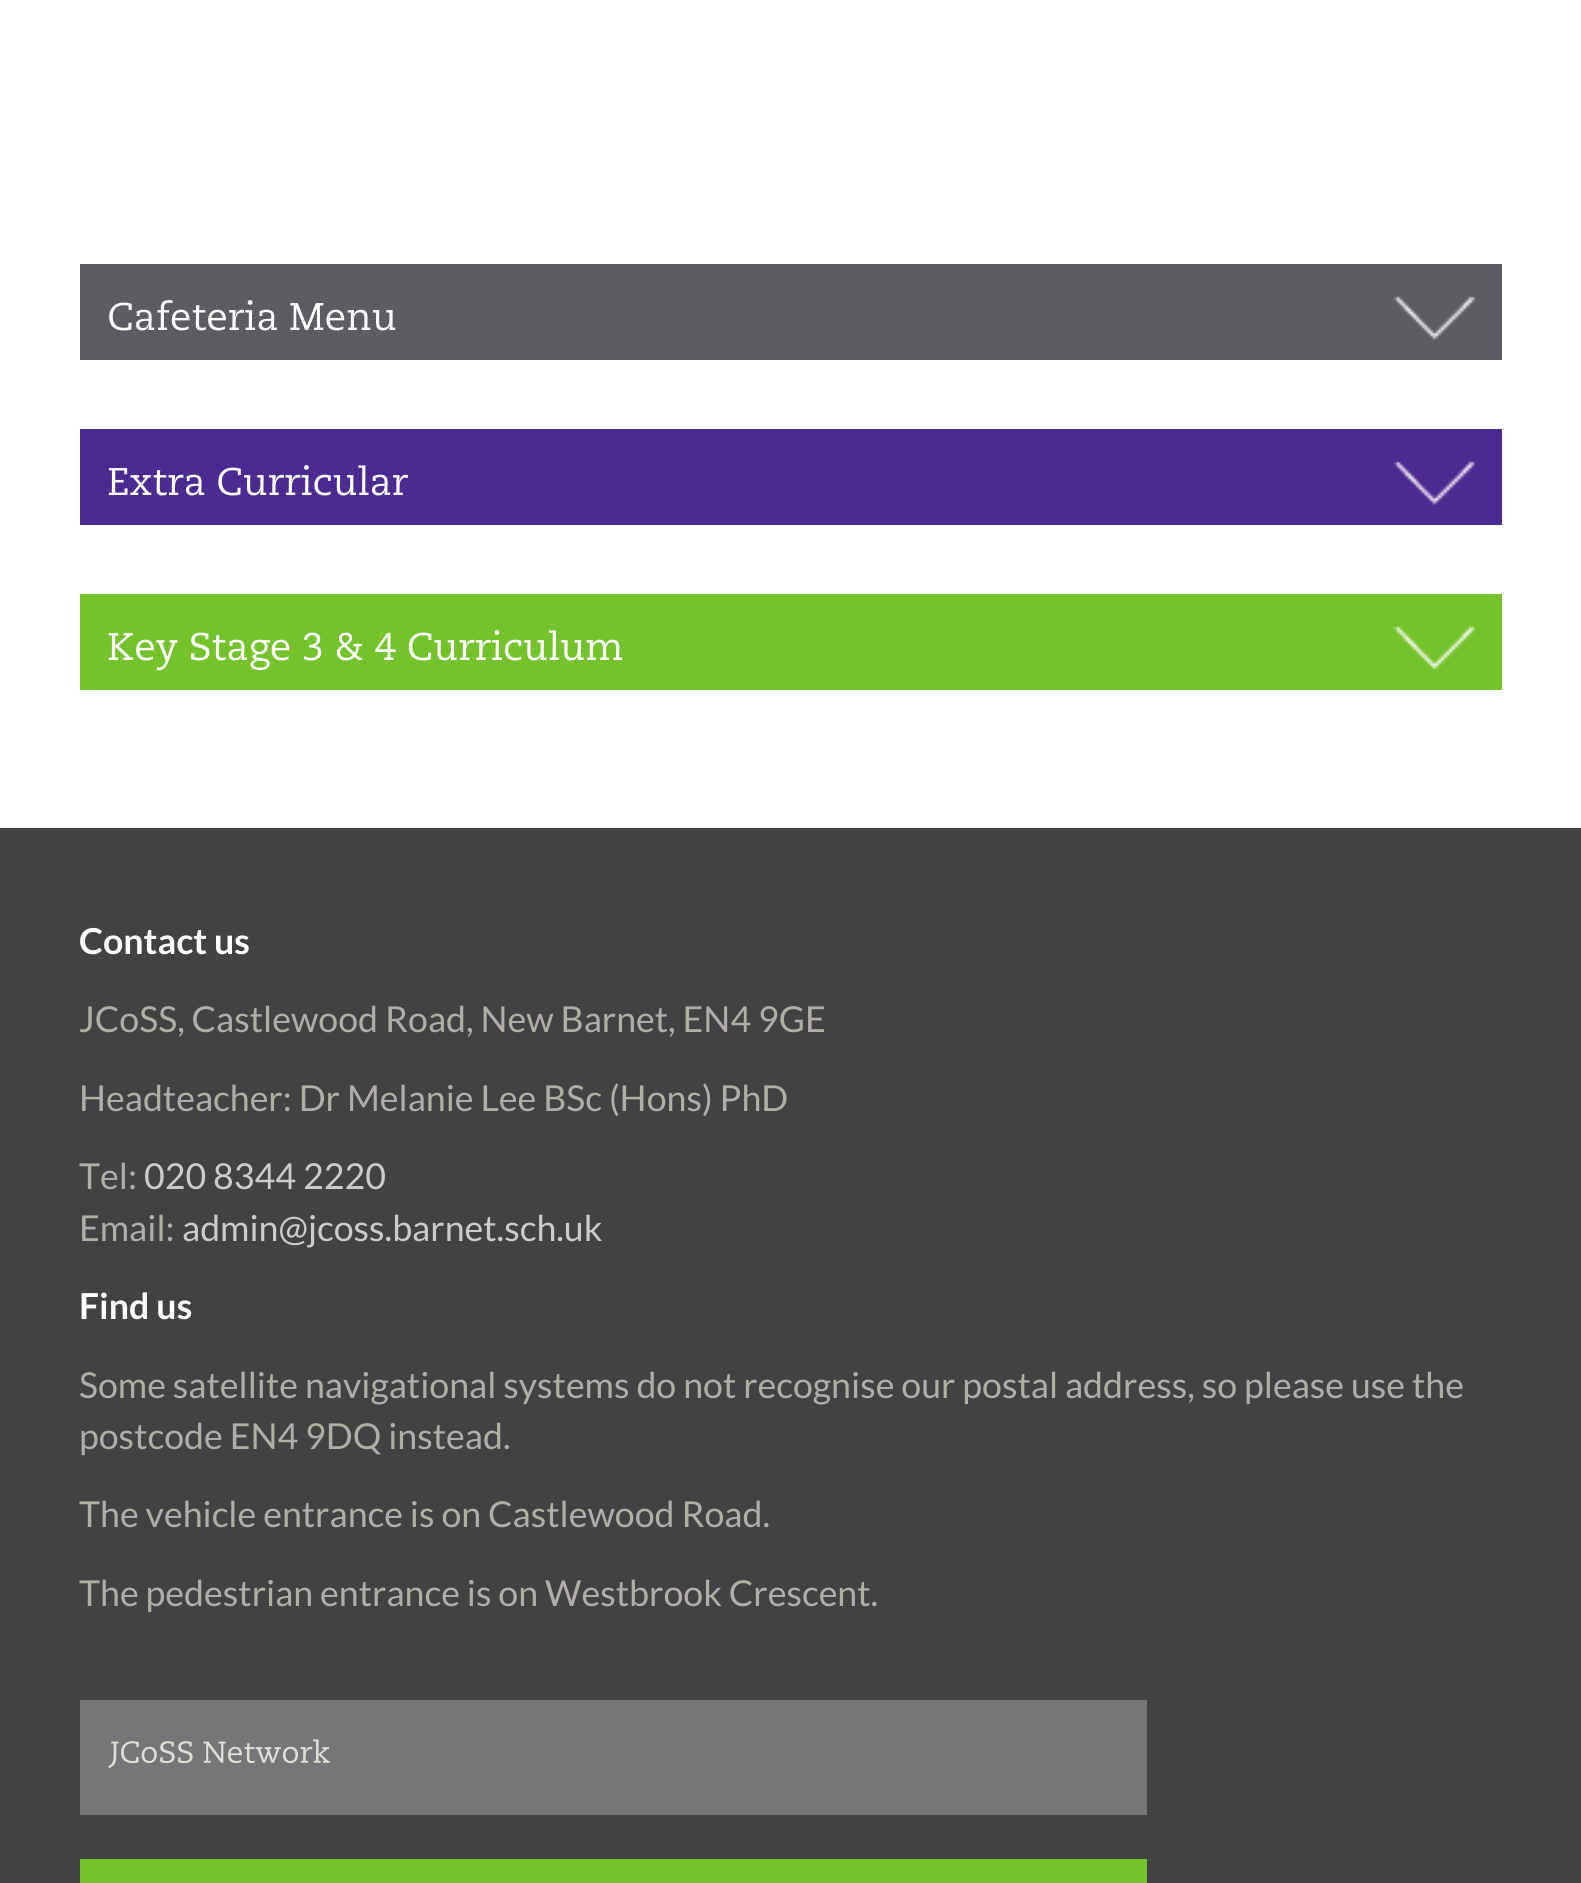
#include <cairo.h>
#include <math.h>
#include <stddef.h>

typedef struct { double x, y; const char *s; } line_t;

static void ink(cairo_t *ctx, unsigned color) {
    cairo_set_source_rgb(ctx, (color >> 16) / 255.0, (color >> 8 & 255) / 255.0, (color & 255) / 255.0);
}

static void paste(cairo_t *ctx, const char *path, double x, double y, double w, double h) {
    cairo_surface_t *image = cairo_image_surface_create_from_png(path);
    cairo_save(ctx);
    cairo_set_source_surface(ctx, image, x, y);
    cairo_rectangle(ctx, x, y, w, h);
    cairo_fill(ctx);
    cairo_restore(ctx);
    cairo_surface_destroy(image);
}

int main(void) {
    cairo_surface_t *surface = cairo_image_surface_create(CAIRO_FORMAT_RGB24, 1581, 1883);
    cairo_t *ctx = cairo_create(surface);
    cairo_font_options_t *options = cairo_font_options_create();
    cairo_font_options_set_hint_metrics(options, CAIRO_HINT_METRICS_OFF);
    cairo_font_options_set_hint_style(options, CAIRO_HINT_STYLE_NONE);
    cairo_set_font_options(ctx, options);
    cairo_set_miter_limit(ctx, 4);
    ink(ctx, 0xFFFFFF);
    cairo_paint(ctx);
    ink(ctx, 0x5B5D62);
    cairo_rectangle(ctx, 80, 264, 1422, 96);
    cairo_fill(ctx);
    paste(ctx, "media/1.png", 1394, 296, 81, 44);
    paste(ctx, "media/2.png", 109, 300, 287, 31);
    ink(ctx, 0x4B2A91);
    cairo_rectangle(ctx, 80, 429, 1422, 96);
    cairo_fill(ctx);
    paste(ctx, "media/3.png", 1394, 461, 81, 44);
    paste(ctx, "media/4.png", 108, 465, 300, 31);
    ink(ctx, 0x74C32C);
    cairo_rectangle(ctx, 80, 594, 1422, 96);
    cairo_fill(ctx);
    paste(ctx, "media/5.png", 1394, 626, 81, 44);
    paste(ctx, "media/6.png", 108, 630, 515, 41);
    ink(ctx, 0x424242);
    cairo_rectangle(ctx, 0, 828, 1581, 1055);
    cairo_fill(ctx);
    cairo_select_font_face(ctx, "Lato", CAIRO_FONT_SLANT_NORMAL, CAIRO_FONT_WEIGHT_BOLD);
    cairo_set_font_size(ctx, 35.75);
    ink(ctx, 0xFFFFFF);
    cairo_move_to(ctx, 79, 954);
    cairo_show_text(ctx, "Contact us");
    cairo_select_font_face(ctx, "Lato", CAIRO_FONT_SLANT_NORMAL, CAIRO_FONT_WEIGHT_NORMAL);
    ink(ctx, 0xB1AEA6);
    {
        static const line_t items[] = {
            {79, 1032, "JCoSS, Castlewood Road, New Barnet, EN4 9GE"},
            {79, 1111, "Headteacher: Dr Melanie Lee BSc (Hons) PhD"},
            {79, 1189, "Tel:"},
        };
        for (size_t i = 0; i < sizeof items / sizeof *items; i++) {
            cairo_move_to(ctx, items[i].x, items[i].y);
            cairo_show_text(ctx, items[i].s);
        }
    }
    ink(ctx, 0xCCCCCC);
    cairo_move_to(ctx, 144, 1189);
    cairo_show_text(ctx, "020 8344 2220");
    ink(ctx, 0xB1AEA6);
    cairo_move_to(ctx, 79, 1241);
    cairo_show_text(ctx, "Email:");
    ink(ctx, 0xCCCCCC);
    cairo_move_to(ctx, 182, 1241);
    cairo_show_text(ctx, "admin@jcoss.barnet.sch.uk");
    cairo_select_font_face(ctx, "Lato", CAIRO_FONT_SLANT_NORMAL, CAIRO_FONT_WEIGHT_BOLD);
    ink(ctx, 0xFFFFFF);
    cairo_move_to(ctx, 79, 1319);
    cairo_show_text(ctx, "Find us");
    cairo_select_font_face(ctx, "Lato", CAIRO_FONT_SLANT_NORMAL, CAIRO_FONT_WEIGHT_NORMAL);
    ink(ctx, 0xB1AEA6);
    {
        static const line_t items[] = {
            {79, 1398, "Some satellite navigational systems do not recognise our postal address, so please use the"},
            {79, 1449, "postcode EN4 9DQ instead."},
            {79, 1527, "The vehicle entrance is on Castlewood Road."},
            {79, 1606, "The pedestrian entrance is on Westbrook Crescent."},
        };
        for (size_t i = 0; i < sizeof items / sizeof *items; i++) {
            cairo_move_to(ctx, items[i].x, items[i].y);
            cairo_show_text(ctx, items[i].s);
        }
    }
    ink(ctx, 0x757678);
    cairo_rectangle(ctx, 80, 1700, 1067, 115);
    cairo_fill(ctx);
    paste(ctx, "media/7.png", 108, 1739, 222, 30);
    ink(ctx, 0x74C32C);
    cairo_rectangle(ctx, 80, 1859, 1067, 24);
    cairo_fill(ctx);
    cairo_surface_write_to_png(surface, "image.png");
    cairo_font_options_destroy(options);
    cairo_destroy(ctx);
    cairo_surface_destroy(surface);
    return 0;
}
